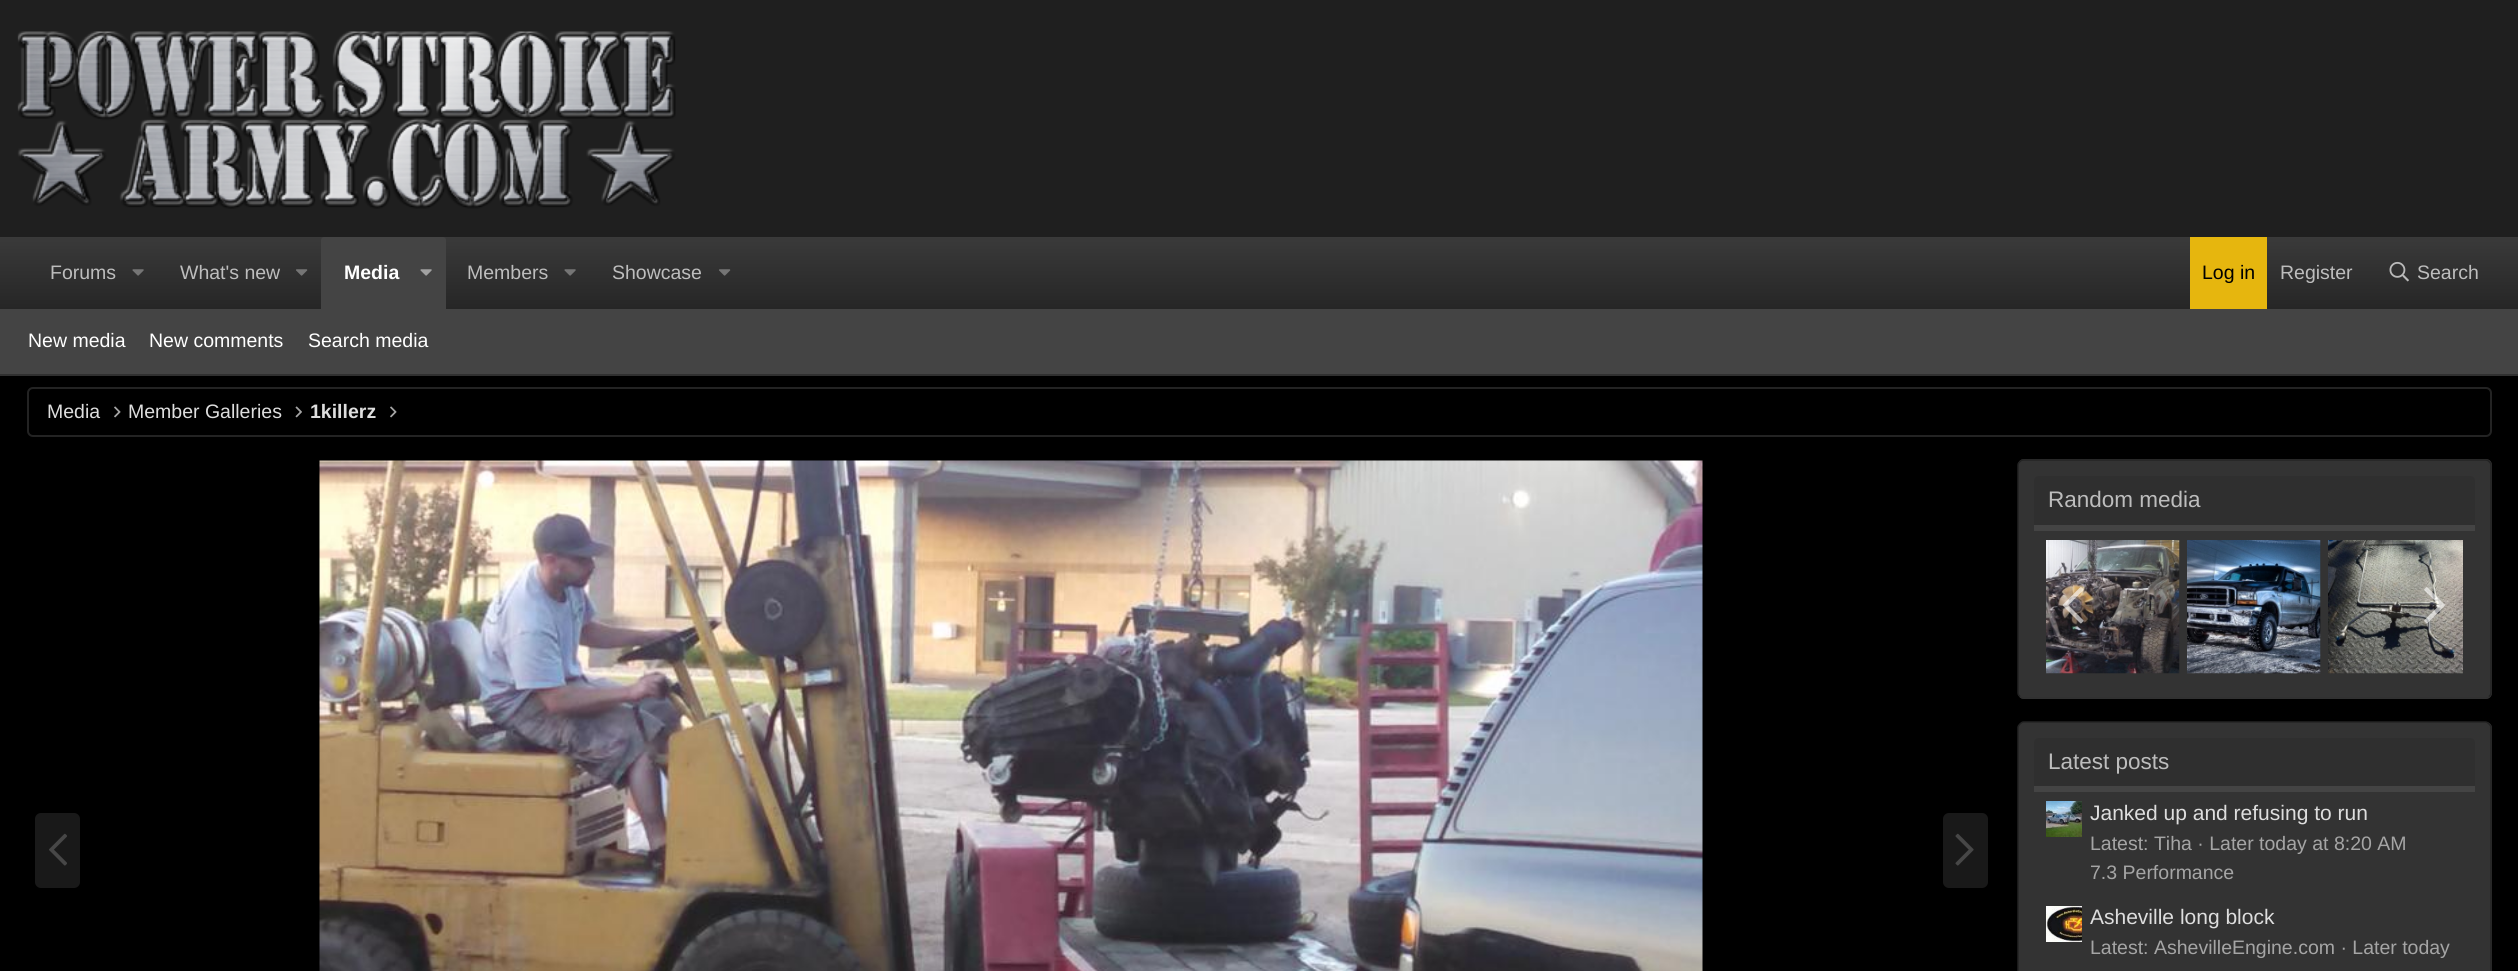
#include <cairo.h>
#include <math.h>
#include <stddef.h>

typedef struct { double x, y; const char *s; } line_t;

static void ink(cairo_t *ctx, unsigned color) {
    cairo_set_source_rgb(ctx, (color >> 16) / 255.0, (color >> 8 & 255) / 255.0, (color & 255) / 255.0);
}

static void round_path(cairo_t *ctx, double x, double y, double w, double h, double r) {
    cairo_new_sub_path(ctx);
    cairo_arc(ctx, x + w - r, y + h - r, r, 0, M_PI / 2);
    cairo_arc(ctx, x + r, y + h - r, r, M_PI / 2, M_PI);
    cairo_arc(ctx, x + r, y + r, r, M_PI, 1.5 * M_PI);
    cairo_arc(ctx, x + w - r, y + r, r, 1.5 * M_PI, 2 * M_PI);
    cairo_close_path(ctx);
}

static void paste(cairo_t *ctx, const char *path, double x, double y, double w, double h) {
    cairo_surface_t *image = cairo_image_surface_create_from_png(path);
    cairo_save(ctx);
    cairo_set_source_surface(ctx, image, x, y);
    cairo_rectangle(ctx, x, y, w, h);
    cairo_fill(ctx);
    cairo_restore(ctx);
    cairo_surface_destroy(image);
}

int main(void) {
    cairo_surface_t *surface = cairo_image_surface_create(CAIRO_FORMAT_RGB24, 2518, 971);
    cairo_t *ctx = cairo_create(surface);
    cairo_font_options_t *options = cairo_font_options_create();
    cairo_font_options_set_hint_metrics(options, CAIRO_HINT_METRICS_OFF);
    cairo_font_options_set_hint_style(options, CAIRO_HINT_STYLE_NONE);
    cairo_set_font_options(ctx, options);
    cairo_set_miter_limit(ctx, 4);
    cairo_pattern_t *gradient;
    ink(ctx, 0x000000);
    cairo_paint(ctx);
    ink(ctx, 0x1F1F1F);
    cairo_rectangle(ctx, 0, 0, 2518, 237);
    cairo_fill(ctx);
    paste(ctx, "media/1.png", 17, 31, 659, 178);
    gradient = cairo_pattern_create_linear(1259, 237, 1259, 309);
    cairo_pattern_add_color_stop_rgba(gradient, 0, 0.227, 0.227, 0.227, 1);
    cairo_pattern_add_color_stop_rgba(gradient, 1, 0.149, 0.149, 0.149, 1);
    cairo_set_source(ctx, gradient);
    cairo_pattern_destroy(gradient);
    cairo_rectangle(ctx, 0, 237, 2518, 72);
    cairo_fill(ctx);
    cairo_select_font_face(ctx, "Liberation Sans", CAIRO_FONT_SLANT_NORMAL, CAIRO_FONT_WEIGHT_NORMAL);
    cairo_set_font_size(ctx, 19.5);
    ink(ctx, 0xBDBDBD);
    cairo_move_to(ctx, 50, 279);
    cairo_show_text(ctx, "Forums");
    paste(ctx, "media/2.png", 132, 269, 12, 7);
    cairo_move_to(ctx, 180, 279);
    cairo_show_text(ctx, "What's new");
    paste(ctx, "media/3.png", 296, 269, 12, 7);
    ink(ctx, 0x444444);
    cairo_new_path(ctx);
    cairo_move_to(ctx, 324, 237);
    cairo_line_to(ctx, 443, 237);
    cairo_curve_to(ctx, 444.5, 237, 446, 238.5, 446, 240);
    cairo_line_to(ctx, 446, 309);
    cairo_line_to(ctx, 321, 309);
    cairo_line_to(ctx, 321, 240);
    cairo_curve_to(ctx, 321, 238.5, 322.5, 237, 324, 237);
    cairo_close_path(ctx);
    cairo_fill(ctx);
    cairo_select_font_face(ctx, "Liberation Sans", CAIRO_FONT_SLANT_NORMAL, CAIRO_FONT_WEIGHT_BOLD);
    ink(ctx, 0xFFFFFF);
    cairo_move_to(ctx, 344, 279);
    cairo_show_text(ctx, "Media");
    paste(ctx, "media/4.png", 420, 269, 12, 7);
    cairo_select_font_face(ctx, "Liberation Sans", CAIRO_FONT_SLANT_NORMAL, CAIRO_FONT_WEIGHT_NORMAL);
    ink(ctx, 0xBDBDBD);
    cairo_move_to(ctx, 467, 279);
    cairo_show_text(ctx, "Members");
    paste(ctx, "media/2.png", 564, 269, 12, 7);
    cairo_move_to(ctx, 612, 279);
    cairo_show_text(ctx, "Showcase");
    paste(ctx, "media/3.png", 719, 269, 12, 7);
    ink(ctx, 0xE6B60E);
    cairo_rectangle(ctx, 2190, 237, 77, 72);
    cairo_fill(ctx);
    ink(ctx, 0x000000);
    cairo_move_to(ctx, 2202, 279);
    cairo_show_text(ctx, "Log in");
    ink(ctx, 0xBDBDBD);
    cairo_move_to(ctx, 2280, 279);
    cairo_show_text(ctx, "Register");
    paste(ctx, "media/5.png", 2389, 261, 20, 21);
    cairo_move_to(ctx, 2417, 279);
    cairo_show_text(ctx, "Search");
    ink(ctx, 0x444444);
    cairo_rectangle(ctx, 0, 309, 2518, 65);
    cairo_fill(ctx);
    ink(ctx, 0x303030);
    cairo_rectangle(ctx, 0, 374, 2518, 2);
    cairo_fill(ctx);
    ink(ctx, 0xFFFFFF);
    {
        static const line_t items[] = {
            {28, 347, "New media"},
            {149, 347, "New comments"},
            {308, 347, "Search media"},
        };
        for (size_t i = 0; i < sizeof items / sizeof *items; i++) {
            cairo_move_to(ctx, items[i].x, items[i].y);
            cairo_show_text(ctx, items[i].s);
        }
    }
    round_path(ctx, 28, 388, 2463, 48, 5);
    ink(ctx, 0x232323);
    cairo_stroke(ctx);
    ink(ctx, 0xDEDEDE);
    cairo_move_to(ctx, 47, 418);
    cairo_show_text(ctx, "Media");
    paste(ctx, "media/6.png", 114, 406, 7, 12);
    cairo_move_to(ctx, 128, 418);
    cairo_show_text(ctx, "Member Galleries");
    paste(ctx, "media/7.png", 295, 406, 7, 12);
    cairo_select_font_face(ctx, "Liberation Sans", CAIRO_FONT_SLANT_NORMAL, CAIRO_FONT_WEIGHT_BOLD);
    cairo_move_to(ctx, 310, 418);
    cairo_show_text(ctx, "1killerz");
    paste(ctx, "media/6.png", 390, 406, 7, 12);
    ink(ctx, 0x191919);
    round_path(ctx, 35, 813, 45, 75, 6);
    cairo_fill(ctx);
    paste(ctx, "media/8.png", 49, 833, 18, 33);
    paste(ctx, "media/9.png", 319, 460, 1384, 511);
    round_path(ctx, 1943, 813, 45, 75, 6);
    cairo_fill(ctx);
    paste(ctx, "media/10.png", 1955, 833, 19, 33);
    ink(ctx, 0x333333);
    round_path(ctx, 2018, 459, 474, 240, 6);
    cairo_fill(ctx);
    cairo_new_path(ctx);
    cairo_move_to(ctx, 2489, 696.5);
    cairo_curve_to(ctx, 2488, 697.5, 2487, 698, 2485.5, 698);
    cairo_line_to(ctx, 2023.5, 698);
    cairo_curve_to(ctx, 2022, 698, 2021, 697.5, 2020, 696.5);
    ink(ctx, 0x303030);
    cairo_set_line_width(ctx, 1.5);
    cairo_stroke(ctx);
    cairo_new_path(ctx);
    cairo_move_to(ctx, 2020, 696.5);
    cairo_curve_to(ctx, 2019, 695.5, 2018, 694.5, 2018, 693);
    cairo_line_to(ctx, 2018, 465);
    cairo_curve_to(ctx, 2018, 463.5, 2019, 462.5, 2020, 461.5);
    cairo_curve_to(ctx, 2021, 460.5, 2022, 460, 2023.5, 460);
    cairo_line_to(ctx, 2485.5, 460);
    cairo_curve_to(ctx, 2487, 460, 2488, 460.5, 2489, 461.5);
    cairo_curve_to(ctx, 2490, 462.5, 2491, 463.5, 2491, 465);
    cairo_line_to(ctx, 2491, 693);
    cairo_curve_to(ctx, 2491, 694.5, 2490, 695.5, 2489, 696.5);
    ink(ctx, 0x232323);
    cairo_stroke(ctx);
    ink(ctx, 0x2F2F2F);
    cairo_new_path(ctx);
    cairo_move_to(ctx, 2039, 476);
    cairo_line_to(ctx, 2470, 476);
    cairo_curve_to(ctx, 2473, 476, 2475, 478, 2475, 481);
    cairo_line_to(ctx, 2475, 531);
    cairo_line_to(ctx, 2034, 531);
    cairo_line_to(ctx, 2034, 481);
    cairo_curve_to(ctx, 2034, 478, 2036, 476, 2039, 476);
    cairo_close_path(ctx);
    cairo_fill(ctx);
    ink(ctx, 0x444444);
    cairo_rectangle(ctx, 2034, 525, 441, 6);
    cairo_fill(ctx);
    cairo_select_font_face(ctx, "Liberation Sans", CAIRO_FONT_SLANT_NORMAL, CAIRO_FONT_WEIGHT_NORMAL);
    cairo_set_font_size(ctx, 22.5);
    ink(ctx, 0xBDBDBD);
    cairo_move_to(ctx, 2048, 507);
    cairo_show_text(ctx, "Random media");
    paste(ctx, "media/11.png", 2046, 540, 134, 134);
    paste(ctx, "media/12.png", 2187, 540, 134, 134);
    paste(ctx, "media/13.png", 2328, 540, 135, 134);
    paste(ctx, "media/14.png", 2062, 587, 22, 37);
    paste(ctx, "media/15.png", 2424, 587, 21, 37);
    ink(ctx, 0x333333);
    round_path(ctx, 2018, 722, 474, 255, 6);
    cairo_fill(ctx);
    cairo_new_path(ctx);
    cairo_move_to(ctx, 2020, 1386.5);
    cairo_curve_to(ctx, 2019, 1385.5, 2018, 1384.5, 2018, 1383);
    cairo_line_to(ctx, 2018, 727.5);
    cairo_curve_to(ctx, 2018, 726, 2019, 725, 2020, 724);
    cairo_curve_to(ctx, 2021, 723, 2022, 722, 2023.5, 722);
    cairo_line_to(ctx, 2485.5, 722);
    cairo_curve_to(ctx, 2487, 722, 2488, 723, 2489, 724);
    cairo_curve_to(ctx, 2490, 725, 2491, 726, 2491, 727.5);
    cairo_line_to(ctx, 2491, 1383);
    cairo_curve_to(ctx, 2491, 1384.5, 2490, 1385.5, 2489, 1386.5);
    ink(ctx, 0x232323);
    cairo_stroke(ctx);
    ink(ctx, 0x2F2F2F);
    cairo_new_path(ctx);
    cairo_move_to(ctx, 2039, 738);
    cairo_line_to(ctx, 2470, 738);
    cairo_curve_to(ctx, 2473, 738, 2475, 740, 2475, 743);
    cairo_line_to(ctx, 2475, 792);
    cairo_line_to(ctx, 2034, 792);
    cairo_line_to(ctx, 2034, 743);
    cairo_curve_to(ctx, 2034, 740, 2036, 738, 2039, 738);
    cairo_close_path(ctx);
    cairo_fill(ctx);
    ink(ctx, 0x444444);
    cairo_rectangle(ctx, 2034, 786, 441, 6);
    cairo_fill(ctx);
    ink(ctx, 0xBDBDBD);
    cairo_move_to(ctx, 2048, 769);
    cairo_show_text(ctx, "Latest posts");
    paste(ctx, "media/16.png", 2046, 801, 36, 36);
    cairo_set_font_size(ctx, 21);
    ink(ctx, 0xDEDEDE);
    cairo_move_to(ctx, 2090, 820);
    cairo_show_text(ctx, "Janked up and refusing to run");
    cairo_set_font_size(ctx, 19.5);
    ink(ctx, 0xA5A5A5);
    cairo_move_to(ctx, 2090, 850);
    cairo_show_text(ctx, "Latest: Tiha · Later today at 8:20 AM");
    cairo_move_to(ctx, 2090, 879);
    cairo_show_text(ctx, "7.3 Performance");
    paste(ctx, "media/17.png", 2046, 906, 36, 36);
    cairo_set_font_size(ctx, 21);
    ink(ctx, 0xDEDEDE);
    cairo_move_to(ctx, 2090, 924);
    cairo_show_text(ctx, "Asheville long block");
    cairo_set_font_size(ctx, 19.5);
    ink(ctx, 0xA5A5A5);
    cairo_move_to(ctx, 2090, 954);
    cairo_show_text(ctx, "Latest: AshevilleEngine.com · Later today");
    cairo_surface_write_to_png(surface, "image.png");
    cairo_font_options_destroy(options);
    cairo_destroy(ctx);
    cairo_surface_destroy(surface);
    return 0;
}
